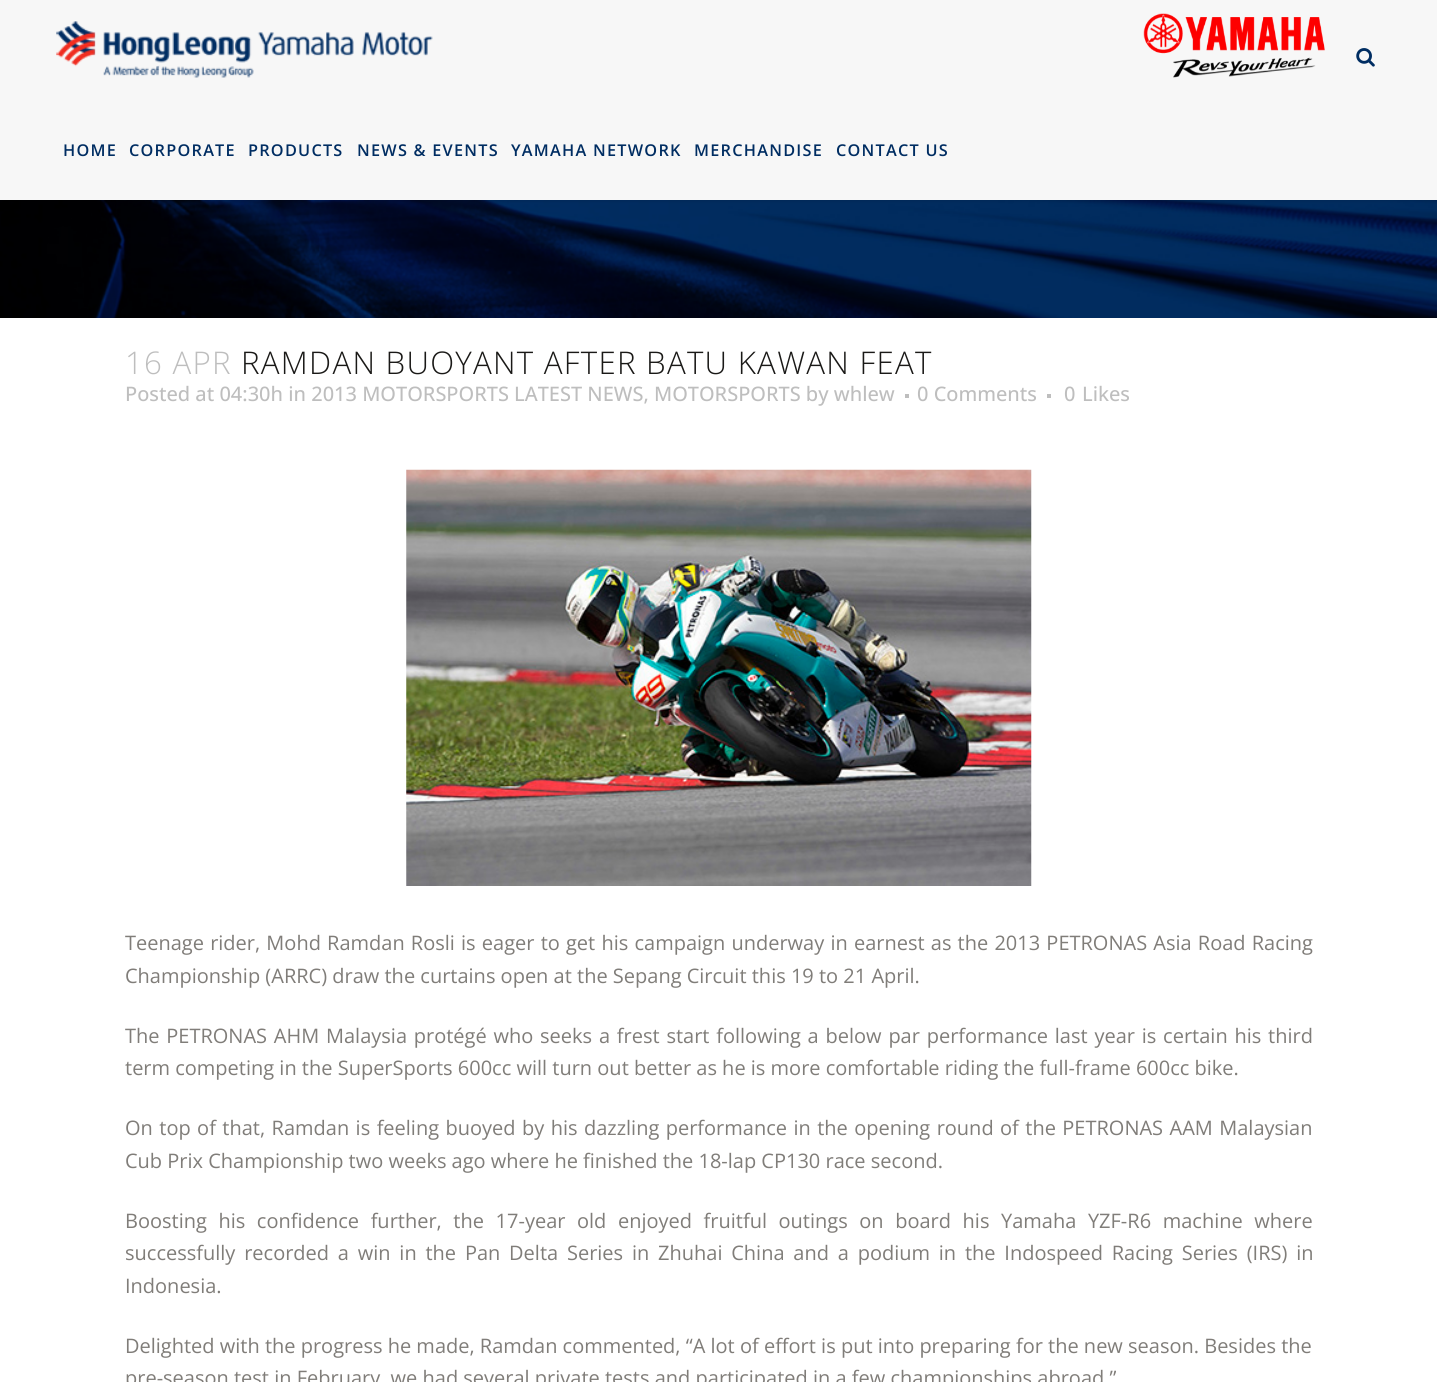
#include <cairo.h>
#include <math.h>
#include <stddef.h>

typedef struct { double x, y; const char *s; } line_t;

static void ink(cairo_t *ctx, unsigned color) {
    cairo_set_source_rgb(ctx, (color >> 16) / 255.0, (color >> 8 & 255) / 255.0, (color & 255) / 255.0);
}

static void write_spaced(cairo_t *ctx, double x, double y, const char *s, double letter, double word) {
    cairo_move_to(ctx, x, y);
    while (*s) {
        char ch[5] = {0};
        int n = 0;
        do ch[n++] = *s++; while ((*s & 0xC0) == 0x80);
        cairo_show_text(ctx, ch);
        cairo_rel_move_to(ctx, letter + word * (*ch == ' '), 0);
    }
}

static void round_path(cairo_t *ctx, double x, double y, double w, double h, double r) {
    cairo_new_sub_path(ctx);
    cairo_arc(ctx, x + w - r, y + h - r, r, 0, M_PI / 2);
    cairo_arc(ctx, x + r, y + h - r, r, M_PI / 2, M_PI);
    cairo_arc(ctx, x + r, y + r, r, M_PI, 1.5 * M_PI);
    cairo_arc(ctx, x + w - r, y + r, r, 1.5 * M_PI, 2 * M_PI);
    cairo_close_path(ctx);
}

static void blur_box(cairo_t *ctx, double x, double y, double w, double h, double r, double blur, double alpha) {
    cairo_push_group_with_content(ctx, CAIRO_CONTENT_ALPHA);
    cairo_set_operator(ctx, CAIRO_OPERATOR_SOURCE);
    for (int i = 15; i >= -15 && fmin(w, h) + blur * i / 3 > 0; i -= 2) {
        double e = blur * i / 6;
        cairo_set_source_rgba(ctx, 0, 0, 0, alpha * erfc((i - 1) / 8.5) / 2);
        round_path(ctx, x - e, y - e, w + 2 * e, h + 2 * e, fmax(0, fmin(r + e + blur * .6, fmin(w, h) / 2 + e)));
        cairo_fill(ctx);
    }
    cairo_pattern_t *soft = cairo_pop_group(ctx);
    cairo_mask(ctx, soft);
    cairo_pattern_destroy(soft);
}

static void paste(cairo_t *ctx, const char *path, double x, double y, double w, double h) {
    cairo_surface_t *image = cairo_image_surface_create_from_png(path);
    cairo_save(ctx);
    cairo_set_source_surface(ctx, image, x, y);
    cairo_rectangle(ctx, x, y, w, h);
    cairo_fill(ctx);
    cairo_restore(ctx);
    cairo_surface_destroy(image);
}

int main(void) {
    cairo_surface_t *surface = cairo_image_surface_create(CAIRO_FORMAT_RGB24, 1437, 1382);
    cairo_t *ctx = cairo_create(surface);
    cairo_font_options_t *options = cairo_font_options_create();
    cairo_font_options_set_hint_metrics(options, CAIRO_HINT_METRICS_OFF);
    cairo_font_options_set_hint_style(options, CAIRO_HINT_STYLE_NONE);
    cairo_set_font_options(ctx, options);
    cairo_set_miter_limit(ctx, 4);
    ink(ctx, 0xFFFFFF);
    cairo_paint(ctx);
    paste(ctx, "media/4.png", 0, 200, 1437, 118);
    ink(ctx, 0x000000);
    blur_box(ctx, 0, 1, 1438, 200, 0, 2, 0.11);
    ink(ctx, 0xF7F7F7);
    cairo_rectangle(ctx, 0, 0, 1437, 200);
    cairo_fill(ctx);
    paste(ctx, "media/1.png", 56, 21, 377, 57);
    paste(ctx, "media/2.png", 1143, 13, 182, 65);
    paste(ctx, "media/3.png", 1356, 48, 19, 19);
    cairo_select_font_face(ctx, "Open Sans SemiBold", CAIRO_FONT_SLANT_NORMAL, CAIRO_FONT_WEIGHT_NORMAL);
    cairo_set_font_size(ctx, 16.25);
    ink(ctx, 0x002D62);
    {
        static const line_t items[] = {
            {63, 156, "HOME"},
            {129, 156, "CORPORATE"},
            {248, 156, "PRODUCTS"},
            {357, 156, "NEWS & EVENTS"},
            {511, 156, "YAMAHA NETWORK"},
            {694, 156, "MERCHANDISE"},
            {836, 156, "CONTACT US"},
        };
        for (size_t i = 0; i < sizeof items / sizeof *items; i++) {
            write_spaced(ctx, items[i].x, items[i].y, items[i].s, 1.25, 0);
        }
    }
    cairo_select_font_face(ctx, "Open Sans Light", CAIRO_FONT_SLANT_NORMAL, CAIRO_FONT_WEIGHT_NORMAL);
    cairo_set_font_size(ctx, 31.25);
    ink(ctx, 0xBEBEBE);
    write_spaced(ctx, 125, 374, "16 APR", 1.25, 0);
    ink(ctx, 0x1A1917);
    write_spaced(ctx, 241, 374, "RAMDAN BUOYANT AFTER BATU KAWAN FEAT", 1.25, 0);
    cairo_select_font_face(ctx, "Open Sans Medium", CAIRO_FONT_SLANT_NORMAL, CAIRO_FONT_WEIGHT_NORMAL);
    cairo_set_font_size(ctx, 20);
    ink(ctx, 0xBEBEBE);
    cairo_move_to(ctx, 125, 401);
    cairo_show_text(ctx, "Posted at 04:30h in 2013 MOTORSPORTS LATEST NEWS, MOTORSPORTS by whlew");
    cairo_rectangle(ctx, 905, 394, 4, 4);
    cairo_fill(ctx);
    cairo_move_to(ctx, 917, 401);
    cairo_show_text(ctx, "0 Comments");
    cairo_rectangle(ctx, 1047, 394, 4, 4);
    cairo_fill(ctx);
    cairo_move_to(ctx, 1064, 401);
    cairo_show_text(ctx, "0");
    cairo_move_to(ctx, 1082, 401);
    cairo_show_text(ctx, "Likes");
    paste(ctx, "media/5.png", 406, 469, 626, 417);
    cairo_select_font_face(ctx, "Open Sans", CAIRO_FONT_SLANT_NORMAL, CAIRO_FONT_WEIGHT_NORMAL);
    ink(ctx, 0x807D79);
    write_spaced(ctx, 125, 950, "Teenage rider, Mohd Ramdan Rosli is eager to get his campaign underway in earnest as the 2013 PETRONAS Asia Road Racing", 0, 1);
    cairo_move_to(ctx, 125, 983);
    cairo_show_text(ctx, "Championship (ARRC) draw the curtains open at the Sepang Circuit this 19 to 21 April.");
    write_spaced(ctx, 125, 1043, "The PETRONAS AHM Malaysia protégé who seeks a frest start following a below par performance last year is certain his third", 0, 1.6);
    cairo_move_to(ctx, 125, 1075);
    cairo_show_text(ctx, "term competing in the SuperSports 600cc will turn out better as he is more comfortable riding the full-frame 600cc bike.");
    write_spaced(ctx, 125, 1135, "On top of that, Ramdan is feeling buoyed by his dazzling performance in the opening round of the PETRONAS AAM Malaysian", 0, 1.25);
    cairo_move_to(ctx, 125, 1168);
    cairo_show_text(ctx, "Cub Prix Championship two weeks ago where he finished the 18-lap CP130 race second.");
    write_spaced(ctx, 125, 1228, "Boosting his confidence further, the 17-year old enjoyed fruitful outings on board his Yamaha YZF-R6 machine where", 0, 6.4);
    write_spaced(ctx, 125, 1260, "successfully recorded a win in the Pan Delta Series in Zhuhai China and a podium in the Indospeed Racing Series (IRS) in", 0, 3.6);
    {
        static const line_t items[] = {
            {125, 1293, "Indonesia."},
            {125, 1353, "Delighted with the progress he made, Ramdan commented, “A lot of effort is put into preparing for the new season. Besides the"},
            {125, 1385, "pre-season test in February, we had several private tests and participated in a few championships abroad.”"},
        };
        for (size_t i = 0; i < sizeof items / sizeof *items; i++) {
            cairo_move_to(ctx, items[i].x, items[i].y);
            cairo_show_text(ctx, items[i].s);
        }
    }
    cairo_surface_write_to_png(surface, "image.png");
    cairo_font_options_destroy(options);
    cairo_destroy(ctx);
    cairo_surface_destroy(surface);
    return 0;
}
